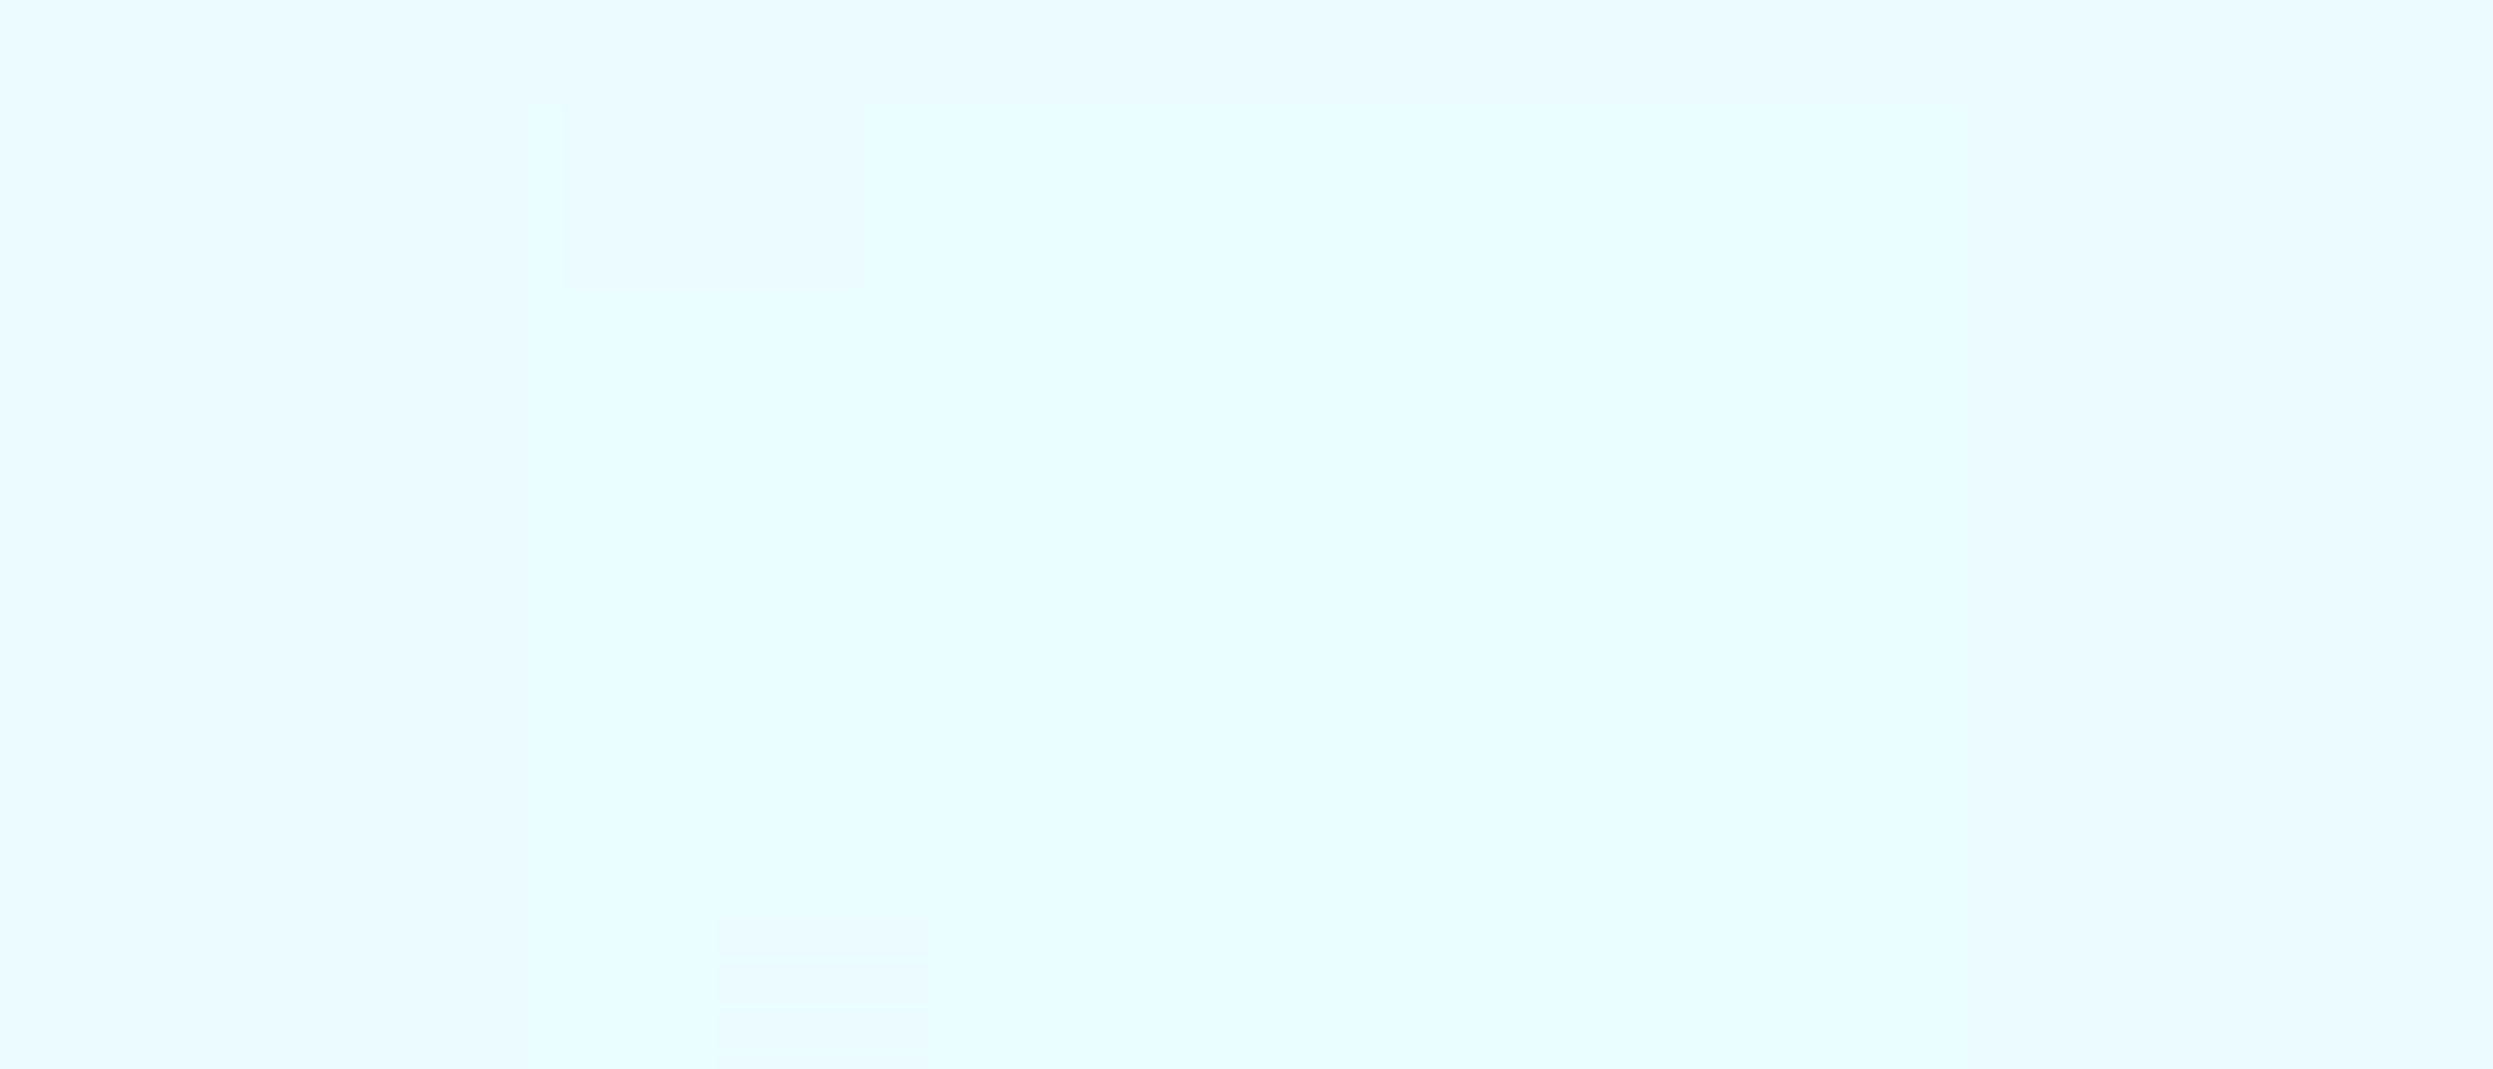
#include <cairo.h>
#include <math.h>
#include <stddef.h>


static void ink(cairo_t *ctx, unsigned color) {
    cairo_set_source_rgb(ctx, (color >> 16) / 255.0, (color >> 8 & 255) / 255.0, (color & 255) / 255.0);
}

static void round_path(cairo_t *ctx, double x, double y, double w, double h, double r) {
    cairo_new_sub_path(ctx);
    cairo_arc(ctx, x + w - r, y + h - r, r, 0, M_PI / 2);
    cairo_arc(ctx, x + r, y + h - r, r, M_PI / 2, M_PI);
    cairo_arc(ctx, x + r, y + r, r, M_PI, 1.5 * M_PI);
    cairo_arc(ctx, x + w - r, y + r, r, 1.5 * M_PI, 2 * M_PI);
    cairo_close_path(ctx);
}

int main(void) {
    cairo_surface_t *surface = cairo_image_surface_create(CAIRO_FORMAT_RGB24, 2493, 1069);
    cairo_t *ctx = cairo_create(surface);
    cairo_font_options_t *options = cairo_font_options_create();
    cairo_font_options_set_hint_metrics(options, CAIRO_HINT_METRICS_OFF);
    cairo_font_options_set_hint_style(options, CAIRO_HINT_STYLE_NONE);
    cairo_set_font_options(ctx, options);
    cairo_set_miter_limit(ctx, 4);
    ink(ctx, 0xEBFBFF);
    cairo_paint(ctx);
    ink(ctx, 0xEBFEFF);
    round_path(ctx, 527, 105, 1440, 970, 6);
    cairo_fill(ctx);
    ink(ctx, 0xEBFBFF);
    cairo_new_path(ctx);
    cairo_move_to(ctx, 565.5, 87);
    cairo_line_to(ctx, 861.5, 87);
    cairo_curve_to(ctx, 862.5, 87, 863, 87.5, 863, 88.5);
    cairo_line_to(ctx, 863, 285);
    cairo_curve_to(ctx, 863, 288, 861, 290, 858, 290);
    cairo_line_to(ctx, 569, 290);
    cairo_curve_to(ctx, 566, 290, 564, 288, 564, 285);
    cairo_line_to(ctx, 564, 88.5);
    cairo_curve_to(ctx, 564, 87.5, 564.5, 87, 565.5, 87);
    cairo_close_path(ctx);
    cairo_fill(ctx);
    round_path(ctx, 717, 918, 213, 39, 3);
    cairo_fill(ctx);
    round_path(ctx, 717, 963, 213, 41, 3);
    cairo_fill(ctx);
    round_path(ctx, 717, 1010, 213, 39, 3);
    cairo_fill(ctx);
    round_path(ctx, 717, 1055, 213, 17, 3);
    cairo_fill(ctx);
    cairo_surface_write_to_png(surface, "image.png");
    cairo_font_options_destroy(options);
    cairo_destroy(ctx);
    cairo_surface_destroy(surface);
    return 0;
}
